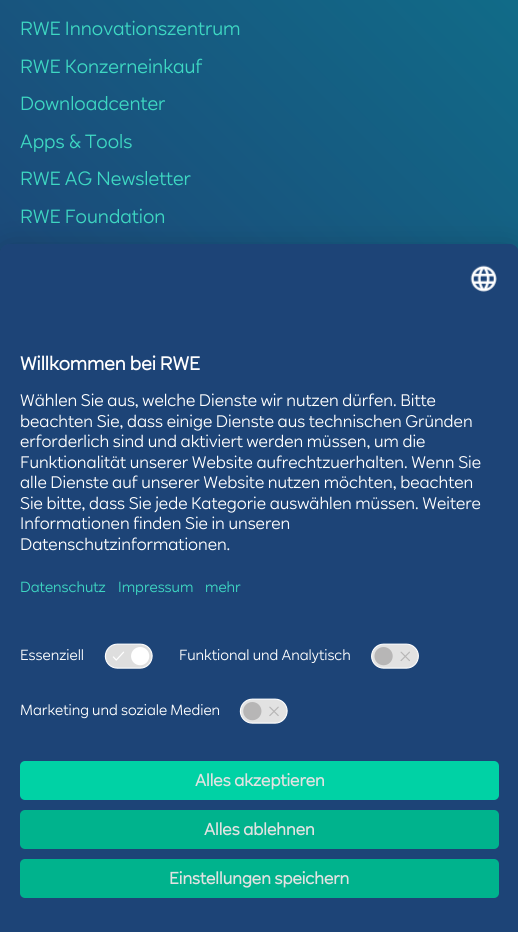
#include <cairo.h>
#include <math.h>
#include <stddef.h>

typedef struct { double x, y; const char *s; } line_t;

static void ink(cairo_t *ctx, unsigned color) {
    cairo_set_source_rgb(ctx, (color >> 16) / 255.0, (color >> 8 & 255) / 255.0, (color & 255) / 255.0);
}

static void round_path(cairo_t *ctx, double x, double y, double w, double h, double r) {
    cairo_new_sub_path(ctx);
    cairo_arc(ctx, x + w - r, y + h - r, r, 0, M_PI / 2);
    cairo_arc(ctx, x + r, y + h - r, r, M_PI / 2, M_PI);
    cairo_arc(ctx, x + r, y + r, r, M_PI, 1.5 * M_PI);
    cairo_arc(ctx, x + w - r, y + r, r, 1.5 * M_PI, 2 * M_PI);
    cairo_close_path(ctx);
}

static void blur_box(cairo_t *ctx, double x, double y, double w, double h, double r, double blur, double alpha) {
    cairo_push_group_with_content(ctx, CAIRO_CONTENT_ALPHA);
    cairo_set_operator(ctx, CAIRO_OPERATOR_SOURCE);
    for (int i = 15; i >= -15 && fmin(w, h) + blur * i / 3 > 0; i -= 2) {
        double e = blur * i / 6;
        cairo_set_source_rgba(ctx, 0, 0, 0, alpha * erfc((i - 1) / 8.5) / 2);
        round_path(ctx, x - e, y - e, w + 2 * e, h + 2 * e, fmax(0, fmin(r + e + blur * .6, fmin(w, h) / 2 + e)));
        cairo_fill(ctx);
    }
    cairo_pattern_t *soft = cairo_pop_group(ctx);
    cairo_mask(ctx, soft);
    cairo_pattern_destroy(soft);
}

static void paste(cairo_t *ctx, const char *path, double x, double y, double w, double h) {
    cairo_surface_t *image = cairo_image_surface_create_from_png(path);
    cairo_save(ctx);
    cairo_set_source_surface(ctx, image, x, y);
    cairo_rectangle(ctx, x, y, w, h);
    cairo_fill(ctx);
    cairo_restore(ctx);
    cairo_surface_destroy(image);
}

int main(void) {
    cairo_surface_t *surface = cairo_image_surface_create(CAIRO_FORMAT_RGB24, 518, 932);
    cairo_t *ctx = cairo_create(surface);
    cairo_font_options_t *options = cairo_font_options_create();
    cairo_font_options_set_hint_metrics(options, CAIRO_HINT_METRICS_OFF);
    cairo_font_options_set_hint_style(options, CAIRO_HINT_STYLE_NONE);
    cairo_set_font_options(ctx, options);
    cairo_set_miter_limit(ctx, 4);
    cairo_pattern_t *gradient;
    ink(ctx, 0xFFFFFF);
    cairo_paint(ctx);
    gradient = cairo_pattern_create_linear(-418, 554, 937, -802);
    cairo_pattern_add_color_stop_rgba(gradient, 0.22, 0.114, 0.267, 0.467, 1);
    cairo_pattern_add_color_stop_rgba(gradient, 1, 0, 0.631, 0.624, 1);
    cairo_set_source(ctx, gradient);
    cairo_pattern_destroy(gradient);
    cairo_rectangle(ctx, 0, 0, 518, 254);
    cairo_fill(ctx);
    cairo_select_font_face(ctx, "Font", CAIRO_FONT_SLANT_NORMAL, CAIRO_FONT_WEIGHT_NORMAL);
    cairo_set_font_size(ctx, 18.75);
    ink(ctx, 0x3ED8C3);
    {
        static const line_t items[] = {
            {20, 35, "RWE Innovationszentrum"},
            {20, 73, "RWE Konzerneinkauf"},
            {20, 110, "Downloadcenter"},
            {20, 148, "Apps & Tools"},
            {20, 185, "RWE AG Newsletter"},
            {20, 223, "RWE Foundation"},
        };
        for (size_t i = 0; i < sizeof items / sizeof *items; i++) {
            cairo_move_to(ctx, items[i].x, items[i].y);
            cairo_show_text(ctx, items[i].s);
        }
    }
    ink(ctx, 0x000000);
    blur_box(ctx, 0, 250, 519, 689, 10, 16, 0.22);
    ink(ctx, 0x1D4477);
    cairo_new_path(ctx);
    cairo_move_to(ctx, 10, 244);
    cairo_line_to(ctx, 509, 244);
    cairo_curve_to(ctx, 514.5, 244, 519, 248.5, 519, 254);
    cairo_line_to(ctx, 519, 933);
    cairo_line_to(ctx, 0, 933);
    cairo_line_to(ctx, 0, 254);
    cairo_curve_to(ctx, 0, 248.5, 4.5, 244, 10, 244);
    cairo_close_path(ctx);
    cairo_fill(ctx);
    cairo_new_path(ctx);
    cairo_move_to(ctx, 10, 244);
    cairo_line_to(ctx, 509, 244);
    cairo_curve_to(ctx, 514.5, 244, 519, 248.5, 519, 254);
    cairo_line_to(ctx, 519, 746);
    cairo_line_to(ctx, 0, 746);
    cairo_line_to(ctx, 0, 254);
    cairo_curve_to(ctx, 0, 248.5, 4.5, 244, 10, 244);
    cairo_close_path(ctx);
    cairo_fill(ctx);
    cairo_new_path(ctx);
    cairo_move_to(ctx, 10, 244);
    cairo_line_to(ctx, 509, 244);
    cairo_curve_to(ctx, 514.5, 244, 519, 248.5, 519, 254);
    cairo_line_to(ctx, 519, 636);
    cairo_line_to(ctx, 0, 636);
    cairo_line_to(ctx, 0, 254);
    cairo_curve_to(ctx, 0, 248.5, 4.5, 244, 10, 244);
    cairo_close_path(ctx);
    cairo_fill(ctx);
    paste(ctx, "media/1.png", 470, 265, 27, 27);
    cairo_select_font_face(ctx, "Font", CAIRO_FONT_SLANT_NORMAL, CAIRO_FONT_WEIGHT_BOLD);
    cairo_set_font_size(ctx, 18.5);
    ink(ctx, 0xFFFFFF);
    cairo_move_to(ctx, 20, 370);
    cairo_show_text(ctx, "Willkommen bei RWE");
    cairo_select_font_face(ctx, "Font", CAIRO_FONT_SLANT_NORMAL, CAIRO_FONT_WEIGHT_NORMAL);
    cairo_set_font_size(ctx, 16.4);
    {
        static const line_t items[] = {
            {20, 406, "Wählen Sie aus, welche Dienste wir nutzen dürfen. Bitte"},
            {20, 427, "beachten Sie, dass einige Dienste aus technischen Gründen"},
            {20, 447, "erforderlich sind und aktiviert werden müssen, um die"},
            {20, 468, "Funktionalität unserer Website aufrechtzuerhalten. Wenn Sie"},
            {20, 488, "alle Dienste auf unserer Website nutzen möchten, beachten"},
            {20, 509, "Sie bitte, dass Sie jede Kategorie auswählen müssen. Weitere"},
            {20, 529, "Informationen finden Sie in unseren"},
            {20, 550, "Datenschutzinformationen."},
        };
        for (size_t i = 0; i < sizeof items / sizeof *items; i++) {
            cairo_move_to(ctx, items[i].x, items[i].y);
            cairo_show_text(ctx, items[i].s);
        }
    }
    cairo_set_font_size(ctx, 14.4);
    ink(ctx, 0x3ED8C3);
    {
        static const line_t items[] = {
            {20, 592, "Datenschutz"},
            {118, 592, "Impressum"},
            {205, 592, "mehr"},
        };
        for (size_t i = 0; i < sizeof items / sizeof *items; i++) {
            cairo_move_to(ctx, items[i].x, items[i].y);
            cairo_show_text(ctx, items[i].s);
        }
    }
    ink(ctx, 0xFFFFFF);
    cairo_move_to(ctx, 20, 660);
    cairo_show_text(ctx, "Essenziell");
    paste(ctx, "media/2.png", 104, 643, 49, 26);
    cairo_move_to(ctx, 179, 660);
    cairo_show_text(ctx, "Funktional und Analytisch");
    paste(ctx, "media/3.png", 371, 643, 48, 26);
    cairo_move_to(ctx, 20, 715);
    cairo_show_text(ctx, "Marketing und soziale Medien");
    paste(ctx, "media/4.png", 239, 698, 49, 26);
    ink(ctx, 0x00D2A5);
    round_path(ctx, 20, 761, 479, 39, 5);
    cairo_fill(ctx);
    cairo_select_font_face(ctx, "Font", CAIRO_FONT_SLANT_NORMAL, CAIRO_FONT_WEIGHT_BOLD);
    cairo_set_font_size(ctx, 16.4);
    ink(ctx, 0xE2E2E2);
    cairo_move_to(ctx, 195, 786);
    cairo_show_text(ctx, "Alles akzeptieren");
    ink(ctx, 0x00B38D);
    round_path(ctx, 20, 810, 479, 39, 5);
    cairo_fill(ctx);
    ink(ctx, 0xE2E2E2);
    cairo_move_to(ctx, 204, 835);
    cairo_show_text(ctx, "Alles ablehnen");
    ink(ctx, 0x00B38D);
    round_path(ctx, 20, 859, 479, 39, 5);
    cairo_fill(ctx);
    ink(ctx, 0xE2E2E2);
    cairo_move_to(ctx, 169, 884);
    cairo_show_text(ctx, "Einstellungen speichern");
    cairo_surface_write_to_png(surface, "image.png");
    cairo_font_options_destroy(options);
    cairo_destroy(ctx);
    cairo_surface_destroy(surface);
    return 0;
}
